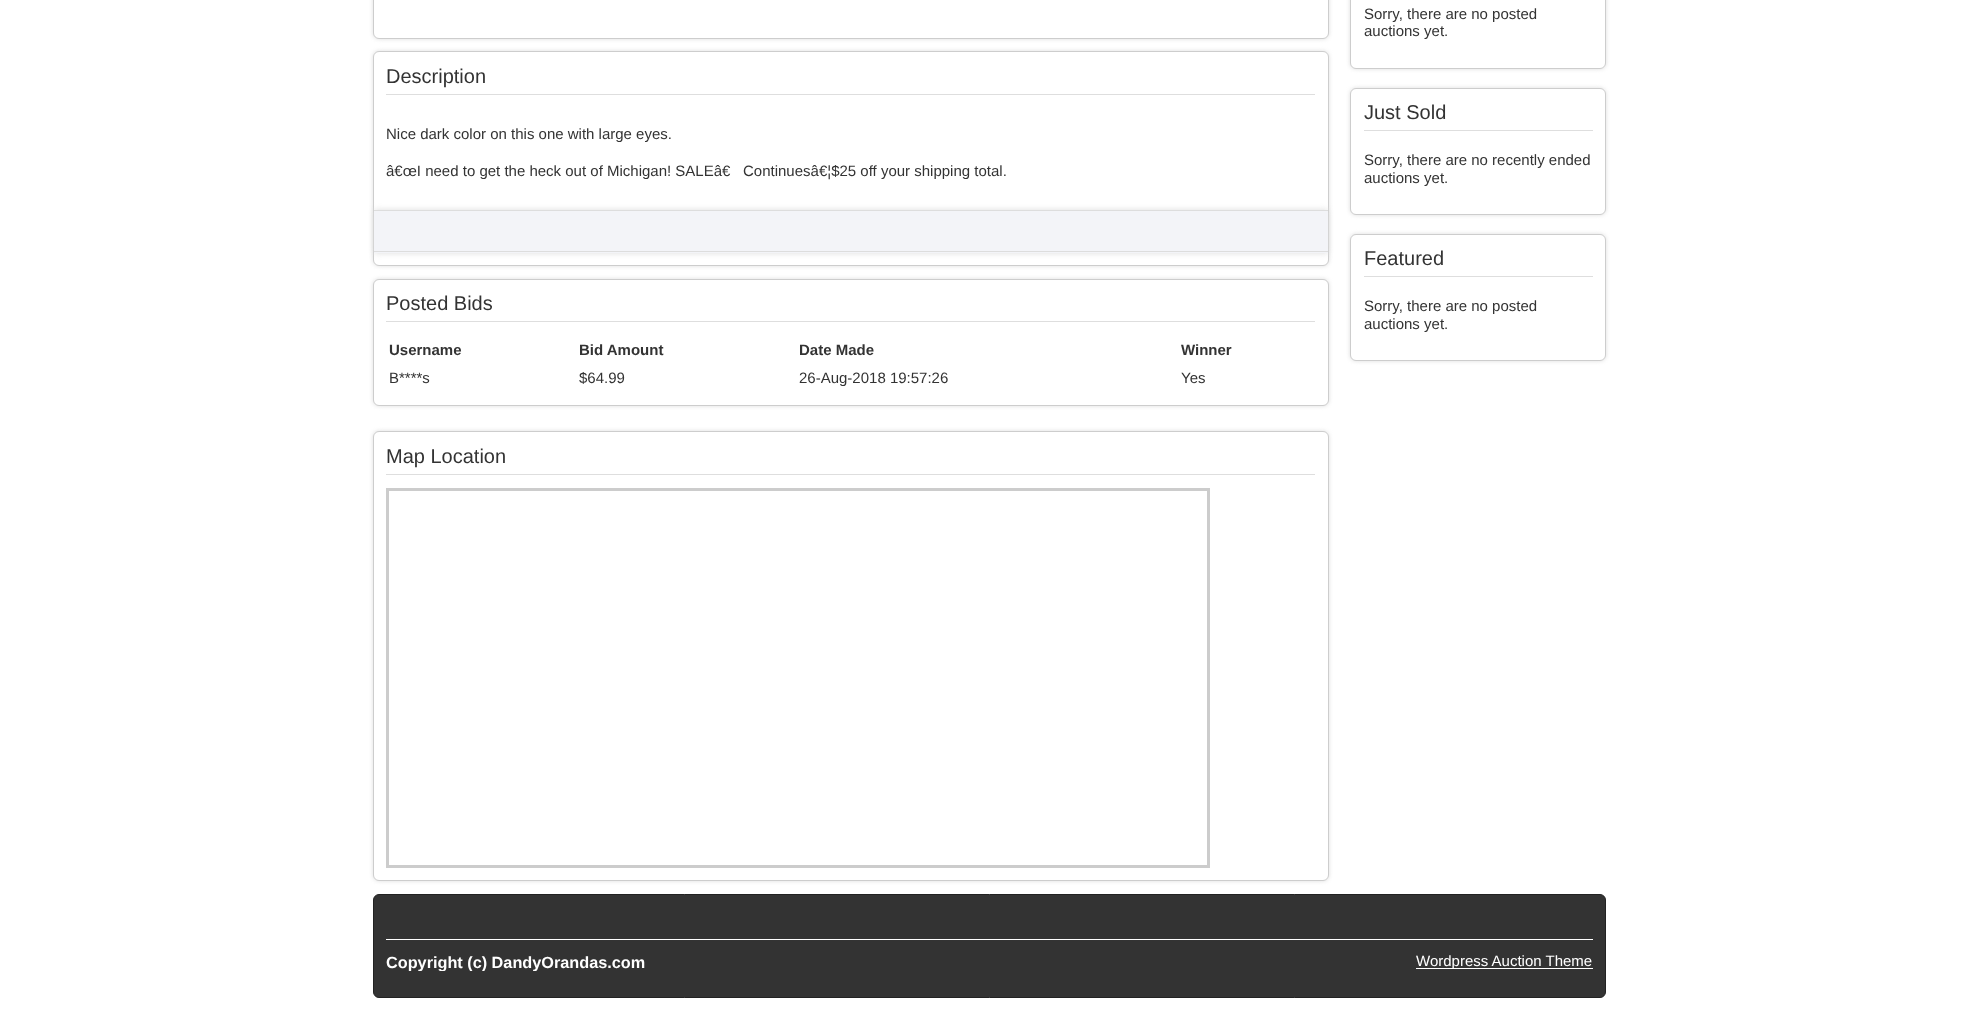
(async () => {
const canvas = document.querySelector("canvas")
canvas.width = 1977
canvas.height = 1022
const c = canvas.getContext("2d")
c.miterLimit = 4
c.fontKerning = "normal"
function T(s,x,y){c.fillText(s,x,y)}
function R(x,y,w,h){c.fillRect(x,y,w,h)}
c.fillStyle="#fff"
R(0,0,1977,1022)
c.fillStyle="#ddd"
c.filter="blur(2px)"
c.beginPath()
c.roundRect(373,-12,956,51,6)
c.fill()
c.filter="none"
c.fillStyle="#fff"
c.beginPath()
c.roundRect(373.5,-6.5,955,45,5.5)
c.fill()
c.strokeStyle="#cdcdcd"
c.stroke()
c.fillStyle="#ddd"
c.filter="blur(2px)"
c.beginPath()
c.roundRect(373,51,956,215,6)
c.fill()
c.filter="none"
c.fillStyle="#fff"
c.beginPath()
c.roundRect(373.5,51.5,955,214,5.5)
c.fill()
c.stroke()
c.fillStyle="#dedede"
R(386,94,929,1)
c.font="20px Liberation Sans"
c.fillStyle="#333"
T("Description",386,83)
c.font="15px Liberation Sans"
T("Nice dark color on this one with large eyes.",386,139)
T("â€œI need to get the heck out of Michigan! SALEâ€",386,176)
T("Continuesâ€¦$25 off your shipping total.",743,176)
c.fillStyle="#ddd"
c.filter="blur(3px)"
c.beginPath()
c.rect(374,210,954,43)
c.fill()
c.filter="none"
c.fillStyle="#f3f4f8"
R(374,211,954,42)
c.fillStyle="#ddd"
R(374,210,954,1)
R(374,251,954,1)
c.filter="blur(2px)"
c.beginPath()
c.roundRect(373,279,956,127,6)
c.fill()
c.filter="none"
c.fillStyle="#fff"
c.beginPath()
c.roundRect(373.5,279.5,955,126,5.5)
c.fill()
c.stroke()
c.fillStyle="#dedede"
R(386,321,929,1)
c.font="20px Liberation Sans"
c.fillStyle="#333"
T("Posted Bids",386,310)
c.font="bold 15px Liberation Sans"
T("Username",389,355)
T("Bid Amount",579,355)
T("Date Made",799,355)
T("Winner",1181,355)
c.font="15px Liberation Sans"
T("B****s",389,383)
T("$64.99",579,383)
T("26-Aug-2018 19:57:26",799,383)
T("Yes",1181,383)
c.fillStyle="#ddd"
c.filter="blur(2px)"
c.beginPath()
c.roundRect(373,431,956,450,6)
c.fill()
c.filter="none"
c.fillStyle="#fff"
c.beginPath()
c.roundRect(373.5,431.5,955,449,5.5)
c.fill()
c.stroke()
c.fillStyle="#dedede"
R(386,474,929,1)
c.font="20px Liberation Sans"
c.fillStyle="#333"
T("Map Location",386,463)
c.strokeStyle="#ccc"
c.lineWidth=3
c.strokeRect(387.5,489.5,821,377)
c.fillStyle="#ddd"
c.filter="blur(2px)"
c.beginPath()
c.roundRect(1350,-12,256,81,6)
c.fill()
c.filter="none"
c.fillStyle="#fff"
c.beginPath()
c.roundRect(1350.5,-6.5,255,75,5.5)
c.fill()
c.strokeStyle="#cdcdcd"
c.lineWidth=1
c.stroke()
c.font="15px Liberation Sans"
c.fillStyle="#333"
T("Sorry, there are no posted",1364,19)
T("auctions yet.",1364,36)
c.fillStyle="#ddd"
c.filter="blur(2px)"
c.beginPath()
c.roundRect(1350,88,256,127,6)
c.fill()
c.filter="none"
c.fillStyle="#fff"
c.beginPath()
c.roundRect(1350.5,88.5,255,126,5.5)
c.fill()
c.stroke()
c.fillStyle="#dedede"
R(1364,130,229,1)
c.font="20px Liberation Sans"
c.fillStyle="#333"
T("Just Sold",1364,119)
c.font="15px Liberation Sans"
T("Sorry, there are no recently ended",1364,165)
T("auctions yet.",1364,183)
c.fillStyle="#ddd"
c.filter="blur(2px)"
c.beginPath()
c.roundRect(1350,234,256,127,6)
c.fill()
c.filter="none"
c.fillStyle="#fff"
c.beginPath()
c.roundRect(1350.5,234.5,255,126,5.5)
c.fill()
c.stroke()
c.fillStyle="#dedede"
R(1364,276,229,1)
c.font="20px Liberation Sans"
c.fillStyle="#333"
T("Featured",1364,265)
c.font="15px Liberation Sans"
T("Sorry, there are no posted",1364,311)
T("auctions yet.",1364,329)
c.beginPath()
c.roundRect(373.5,894.5,1232,103,5.5)
c.fill()
c.strokeStyle="#222"
c.stroke()
c.fillStyle="#fff"
R(386,939,1207,1)
c.save()
c.beginPath()
c.rect(386,940,1207,31)
c.clip()
c.font="bold 16.25px Liberation Sans"
T("Copyright (c) DandyOrandas.com",386,968)
c.restore()
R(1416,968,177,1)
T("Wordpress Auction Theme",1416,966)
})()
